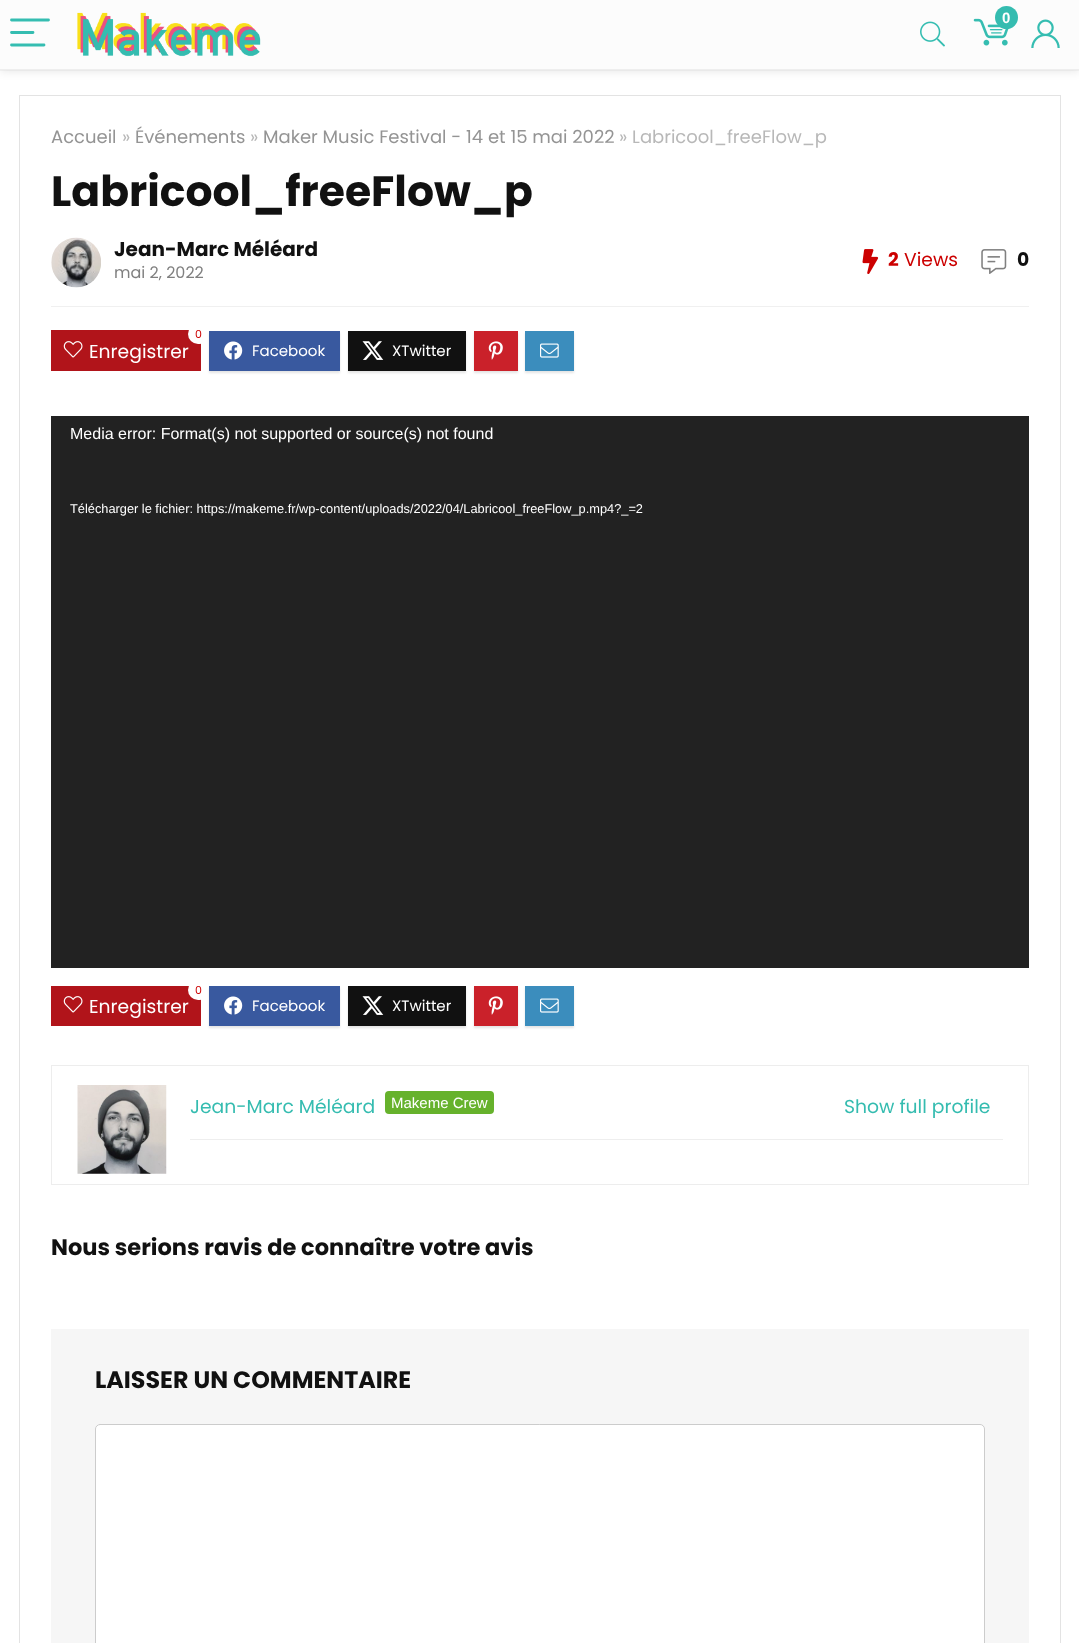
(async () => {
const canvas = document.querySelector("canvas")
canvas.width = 1079
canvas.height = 1643
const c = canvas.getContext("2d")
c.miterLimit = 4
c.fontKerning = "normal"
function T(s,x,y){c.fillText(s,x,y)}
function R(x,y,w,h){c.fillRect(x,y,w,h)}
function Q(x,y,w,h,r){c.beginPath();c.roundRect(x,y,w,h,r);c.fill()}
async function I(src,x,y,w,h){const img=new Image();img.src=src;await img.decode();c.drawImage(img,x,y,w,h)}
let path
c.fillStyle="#fff"
R(0,0,1079,1643)
c.strokeStyle="#f7f7f7"
c.strokeRect(-.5,-.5,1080,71)
c.fillStyle="#0000001a"
c.filter="blur(5px)"
c.beginPath()
c.rect(0,1,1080,70)
c.fill()
c.filter="none"
c.fillStyle="#fcfcfc"
R(0,0,1079,69)
c.fillStyle="#eee"
R(0,69,1079,1)
path = new Path2D("M11.5 20h37m-37 12.5h21.5m-21.5 12.5h32.5")
c.strokeStyle="#35bdb1"
c.lineWidth=2.8
c.lineCap="round"
c.stroke(path)
await I("1.png",77,12,184,45)
await I("2.png",920,21,25,26)
await I("3.png",973,18,36,28)
c.fillStyle="#35bcb0"
c.beginPath()
c.arc(1006.5,17.5,11.5,0,7)
c.fill()
c.font="bold 15px Liberation Sans"
c.fillStyle="#fff"
T("0",1002,23)
await I("4.png",1031,19,29,29)
c.strokeStyle="#e3e3e3"
c.lineWidth=1
c.strokeRect(19.5,95.5,1041,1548)
c.font="18px Poppins"
c.fillStyle="#949494"
T("Accueil",51,143)
c.fillStyle="#b8b8b8"
T("»",122,143)
c.fillStyle="#949494"
T("Événements",135,143)
c.fillStyle="#b8b8b8"
T("»",250,143)
c.fillStyle="#949494"
T("Maker Music Festival - 14 et 15 mai 2022",263,143)
c.fillStyle="#b8b8b8"
T("» Labricool_freeFlow_p",619,143)
c.font="bold 42.5px Poppins"
c.fillStyle="#111"
T("Labricool_freeFlow_p",51,206)
c.fillStyle="#f0f0f0"
R(51,306,978,1)
await I("5.png",51,237,50,51)
c.font="bold 20px Poppins"
c.fillStyle="#111"
T("Jean-Marc Méléard",114,256)
c.font="16px Poppins"
c.fillStyle="#808080"
T("mai 2, 2022",114,278)
await I("6.png",862,249,17,25)
c.font="bold 18.75px Poppins"
c.fillStyle="#c00"
T("2",888,266)
c.font="18.75px Poppins"
T("Views",904,266)
await I("7.png",981,249,26,25)
c.font="bold 18.75px Poppins"
c.fillStyle="#111"
T("0",1017,266)
c.fillStyle="#b1141a"
R(51,330,150,41)
c.save()
c.beginPath()
c.rect(51,326,978,53)
c.clip()
c.fillStyle="#fff"
Q(188,324,22,20,10)
c.restore()
c.font="11px Poppins"
c.fillStyle="#c00"
T("0",195,338)
await I("8.png",63,341,20,17)
c.font="18.75px Poppins"
c.fillStyle="#fff"
T("Enregistrer",89,358)
c.fillStyle="#e4e4e4"
c.filter="blur(1px)"
c.beginPath()
c.rect(209,333,131,40)
c.fill()
c.filter="none"
c.fillStyle="#39599f"
R(209,331,131,40)
await I("9.png",224,341,19,19)
c.font="15px Poppins"
c.fillStyle="#fff"
T("Facebook",252,356)
c.fillStyle="#e4e4e4"
c.filter="blur(1px)"
c.beginPath()
c.rect(348,333,118,40)
c.fill()
c.filter="none"
c.fillStyle="#111"
R(348,331,118,40)
await I("10.png",362,341,22,19)
c.fillStyle="#fff"
T("XTwitter",392,356)
c.fillStyle="#e4e4e4"
c.filter="blur(1px)"
c.beginPath()
c.rect(474,333,44,40)
c.fill()
c.filter="none"
c.fillStyle="#ca212a"
R(474,331,44,40)
await I("11.png",488,341,15,19)
c.fillStyle="#e4e4e4"
c.filter="blur(1px)"
c.beginPath()
c.rect(525,333,49,40)
c.fill()
c.filter="none"
c.fillStyle="#3b8dbd"
R(525,331,49,40)
await I("12.png",540,343,19,15)
c.fillStyle="#222"
R(51,416,978,552)
c.font="16px Liberation Sans"
c.fillStyle="#fff"
T("Media error: Format(s) not supported or source(s) not found",70,439)
c.font="12.8px Liberation Sans"
T("Télécharger le fichier: https://makeme.fr/wp-content/uploads/2022/04/Labricool_freeFlow_p.mp4?_=2",70,513)
c.fillStyle="#b1141a"
R(51,986,150,40)
c.fillStyle="#fff"
Q(188,980,22,20,10)
c.font="11px Poppins"
c.fillStyle="#c00"
T("0",195,994)
await I("8.png",63,996,20,17)
c.font="18.75px Poppins"
c.fillStyle="#fff"
T("Enregistrer",89,1013)
c.fillStyle="#e4e4e4"
c.filter="blur(1px)"
c.beginPath()
c.rect(209,988,131,40)
c.fill()
c.filter="none"
c.fillStyle="#39599f"
R(209,986,131,40)
await I("9.png",224,996,19,19)
c.font="15px Poppins"
c.fillStyle="#fff"
T("Facebook",252,1011)
c.fillStyle="#e4e4e4"
c.filter="blur(1px)"
c.beginPath()
c.rect(348,988,118,40)
c.fill()
c.filter="none"
c.fillStyle="#111"
R(348,986,118,40)
await I("10.png",362,996,22,19)
c.fillStyle="#fff"
T("XTwitter",392,1011)
c.fillStyle="#e4e4e4"
c.filter="blur(1px)"
c.beginPath()
c.rect(474,988,44,40)
c.fill()
c.filter="none"
c.fillStyle="#ca212a"
R(474,986,44,40)
await I("11.png",488,996,15,19)
c.fillStyle="#e4e4e4"
c.filter="blur(1px)"
c.beginPath()
c.rect(525,988,49,40)
c.fill()
c.filter="none"
c.fillStyle="#3b8dbd"
R(525,986,49,40)
await I("12.png",540,998,19,15)
c.strokeStyle="#ededed"
c.strokeRect(51.5,1065.5,977,119)
await I("13.png",77,1085,90,89)
c.font="18.75px Poppins"
c.fillStyle="#35bcb0"
T("Jean-Marc Méléard",190,1113)
c.fillStyle="#66b22c"
Q(385,1091,109,23,4)
c.font="15px Liberation Sans"
c.fillStyle="#fff"
T("Makeme Crew",391,1108)
c.font="18.75px Poppins"
c.fillStyle="#35bcb0"
T("Show full profile",844,1113)
c.fillStyle="#eee"
R(190,1139,813,1)
c.font="bold 22.5px Poppins"
c.fillStyle="#111"
T("Nous serions ravis de connaître votre avis",51,1255)
c.fillStyle="#f6f6f6"
R(51,1329,978,314)
c.font="bold 23.75px Poppins"
c.fillStyle="#111"
T("LAISSER UN COMMENTAIRE",95,1388)
c.fillStyle="#fff"
c.beginPath()
c.roundRect(95.5,1424.5,889,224,4.5)
c.fill()
c.strokeStyle="#ccc"
c.stroke()
})()
